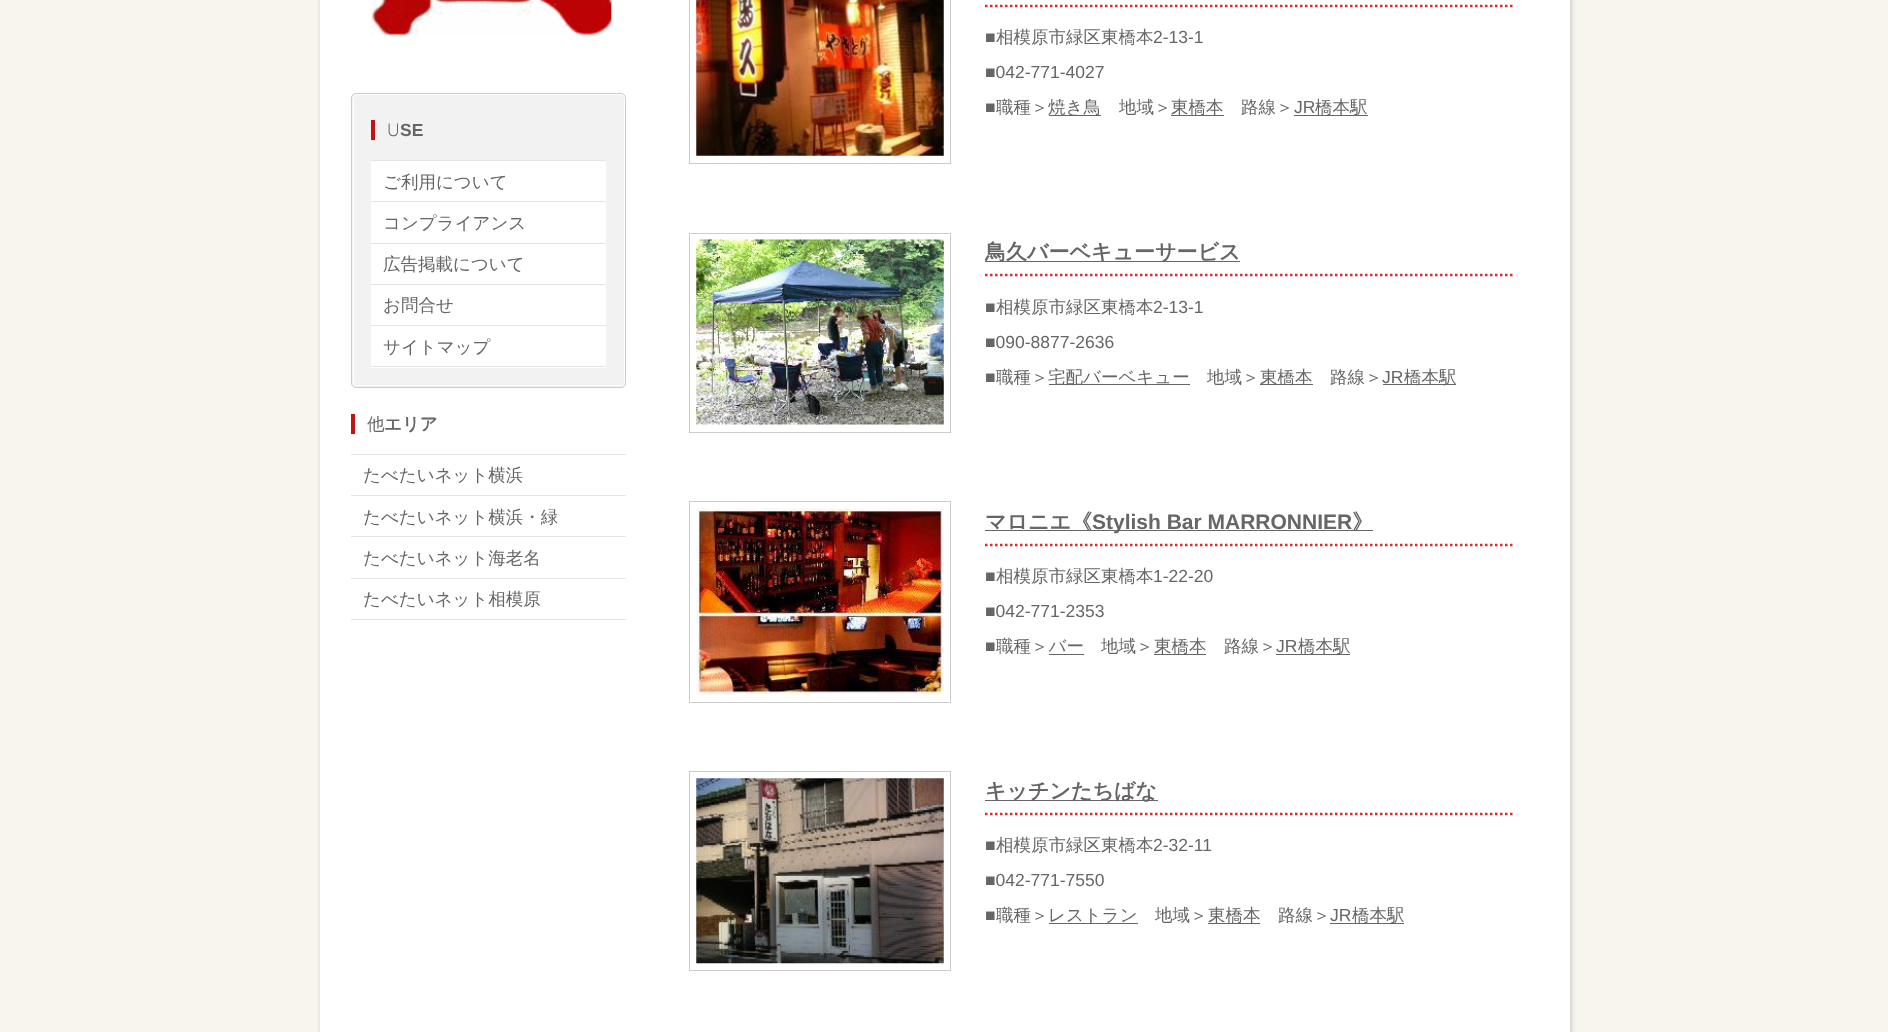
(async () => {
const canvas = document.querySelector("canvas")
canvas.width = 1888
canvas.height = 1032
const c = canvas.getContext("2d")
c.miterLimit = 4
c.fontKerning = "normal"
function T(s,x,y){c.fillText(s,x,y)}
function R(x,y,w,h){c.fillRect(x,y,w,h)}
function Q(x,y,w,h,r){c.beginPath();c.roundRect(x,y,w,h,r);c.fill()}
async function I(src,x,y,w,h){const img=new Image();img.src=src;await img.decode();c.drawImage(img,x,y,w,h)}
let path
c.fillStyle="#f8f5ee"
R(0,0,1888,1032)
c.fillStyle="#00000033"
c.filter="blur(2.5px)"
c.beginPath()
c.roundRect(321,-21,1250,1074,13)
c.fill()
c.filter="none"
c.fillStyle="#fff"
R(320,0,1250,1032)
await I("1.png",370,0,242,36)
c.fillStyle="#f2f2f2"
Q(351,93,275,295,5)
c.beginPath()
c.roundRect(353.5,94.5,271,291,3.5)
c.strokeStyle="#fff"
c.stroke()
c.beginPath()
c.roundRect(351.5,93.5,274,294,4.5)
c.strokeStyle="#ccc"
c.stroke()
c.font="300 17.5px Noto Sans"
c.fillStyle="#666"
T("U",387,136)
c.fillStyle="#c71212"
R(371,120,4,20)
c.font="bold 17.5px Liberation Sans"
c.fillStyle="#666"
T("SE",400,136)
c.fillStyle="#e4e4e4"
R(371,160,235,1)
c.fillStyle="#fff"
R(371,161,235,82)
c.fillStyle="#e4e4e4"
R(371,201,235,1)
c.font="500 17.5px WenQuanYi Zen Hei"
c.fillStyle="#666"
T("ご利用について",383,188)
c.fillStyle="#e4e4e4"
R(371,243,235,1)
c.fillStyle="#666"
T("コンプライアンス",383,229)
c.fillStyle="#fff"
R(371,244,235,40)
c.fillStyle="#e4e4e4"
R(371,284,235,1)
c.fillStyle="#666"
T("広告掲載について",383,270)
c.fillStyle="#fff"
R(371,285,235,40)
c.fillStyle="#e4e4e4"
R(371,325,235,1)
c.fillStyle="#666"
T("お問合せ",383,311)
c.fillStyle="#fff"
R(371,326,235,42)
c.fillStyle="#e4e4e4"
R(371,366,235,1)
c.fillStyle="#666"
T("サイトマップ",383,353)
c.font="100 17.5px Noto Sans"
T("他",367,430)
c.fillStyle="#c71212"
R(351,414,4,20)
c.font="bold 17.5px WenQuanYi Zen Hei"
c.fillStyle="#666"
T("エリア",384,430)
c.fillStyle="#e4e4e4"
R(351,454,275,1)
R(351,495,275,1)
c.font="500 17.5px WenQuanYi Zen Hei"
c.fillStyle="#666"
T("たべたいネット横浜",363,481)
c.fillStyle="#e4e4e4"
R(351,536,275,1)
c.fillStyle="#666"
T("たべたいネット横浜・緑",363,523)
c.fillStyle="#e4e4e4"
R(351,578,275,1)
c.fillStyle="#666"
T("たべたいネット海老名",363,564)
c.fillStyle="#e4e4e4"
R(351,619,275,1)
c.fillStyle="#666"
T("たべたいネット相模原",363,605)
c.strokeRect(689.5,-.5,261,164)
await I("2.png",696,0,248,156)
path = new Path2D("M985 6h529")
c.strokeStyle="#dd2a2a"
c.lineWidth=2.5
c.setLineDash([2.5,2.5])
c.stroke(path)
c.font="17.5px Liberation Sans"
T("■",985,43)
c.font="500 17.5px WenQuanYi Zen Hei"
T("相模原市緑区東橋本",996,43)
c.font="17.5px Liberation Sans"
T("2-13-1",1153,43)
T("■042-771-4027",985,78)
T("■",985,113)
c.font="500 17.5px WenQuanYi Zen Hei"
T("職種＞",996,113)
R(1049,115,52,1)
T("焼き鳥",1048,113)
T("地域＞",1119,113)
R(1171,115,53,1)
T("東橋本",1171,113)
T("路線＞",1241,113)
c.font="17.5px Liberation Sans"
T("JR",1294,113)
R(1294,115,74,1)
c.font="500 17.5px WenQuanYi Zen Hei"
T("橋本駅",1315,113)
c.strokeStyle="#ccc"
c.lineWidth=1
c.setLineDash([])
c.strokeRect(689.5,233.5,261,199)
await I("3.png",696,239,248,186)
path = new Path2D("M985 275h529")
c.strokeStyle="#dd2a2a"
c.lineWidth=2.5
c.setLineDash([2.5,2.5])
c.stroke(path)
R(985,261,255,1)
c.font="bold 21px WenQuanYi Zen Hei"
T("鳥久バーベキューサービス",985,259)
c.font="17.5px Liberation Sans"
T("■",985,313)
c.font="500 17.5px WenQuanYi Zen Hei"
T("相模原市緑区東橋本",996,313)
c.font="17.5px Liberation Sans"
T("2-13-1",1153,313)
T("■090-8877-2636",985,348)
T("■",985,383)
c.font="500 17.5px WenQuanYi Zen Hei"
T("職種＞",996,383)
R(1049,384,141,1)
T("宅配バーベキュー",1048,383)
T("地域＞",1207,383)
R(1260,384,53,1)
T("東橋本",1260,383)
T("路線＞",1330,383)
c.font="17.5px Liberation Sans"
T("JR",1382,383)
R(1383,384,73,1)
c.font="500 17.5px WenQuanYi Zen Hei"
T("橋本駅",1404,383)
c.strokeStyle="#ccc"
c.lineWidth=1
c.setLineDash([])
c.strokeRect(689.5,501.5,261,201)
await I("4.png",696,508,248,187)
path = new Path2D("M985 545h529")
c.strokeStyle="#dd2a2a"
c.lineWidth=2.5
c.setLineDash([2.5,2.5])
c.stroke(path)
R(985,530,388,1)
c.font="bold 21px WenQuanYi Zen Hei"
T("マロニエ《",985,529)
c.font="bold 21px Liberation Sans"
T("Stylish Bar MARRONNIER",1092,529)
c.font="bold 21px WenQuanYi Zen Hei"
T("》",1352,529)
c.font="17.5px Liberation Sans"
T("■",985,582)
c.font="500 17.5px WenQuanYi Zen Hei"
T("相模原市緑区東橋本",996,582)
c.font="17.5px Liberation Sans"
T("1-22-20",1153,582)
T("■042-771-2353",985,617)
T("■",985,652)
c.font="500 17.5px WenQuanYi Zen Hei"
T("職種＞バー",996,652)
T("地域＞",1101,652)
R(1154,654,52,1)
T("東橋本",1154,652)
T("路線＞",1224,652)
c.font="17.5px Liberation Sans"
T("JR",1276,652)
R(1276,654,74,1)
c.font="500 17.5px WenQuanYi Zen Hei"
T("橋本駅",1298,652)
R(1049,654,35,1)
c.strokeStyle="#ccc"
c.lineWidth=1
c.setLineDash([])
c.strokeRect(689.5,771.5,261,199)
await I("5.png",696,778,248,186)
path = new Path2D("M985 814h529")
c.strokeStyle="#dd2a2a"
c.lineWidth=2.5
c.setLineDash([2.5,2.5])
c.stroke(path)
R(985,800,173,1)
c.font="bold 21px WenQuanYi Zen Hei"
T("キッチンたちばな",985,798)
c.font="17.5px Liberation Sans"
T("■",985,851)
c.font="500 17.5px WenQuanYi Zen Hei"
T("相模原市緑区東橋本",996,851)
c.font="17.5px Liberation Sans"
T("2-32-11",1153,851)
T("■042-771-7550",985,886)
T("■",985,921)
c.font="500 17.5px WenQuanYi Zen Hei"
T("職種＞",996,921)
R(1049,923,89,1)
T("レストラン",1048,921)
T("地域＞",1155,921)
R(1208,923,52,1)
T("東橋本",1208,921)
T("路線＞",1278,921)
c.font="17.5px Liberation Sans"
T("JR",1330,921)
R(1330,923,74,1)
c.font="500 17.5px WenQuanYi Zen Hei"
T("橋本駅",1352,921)
})()
